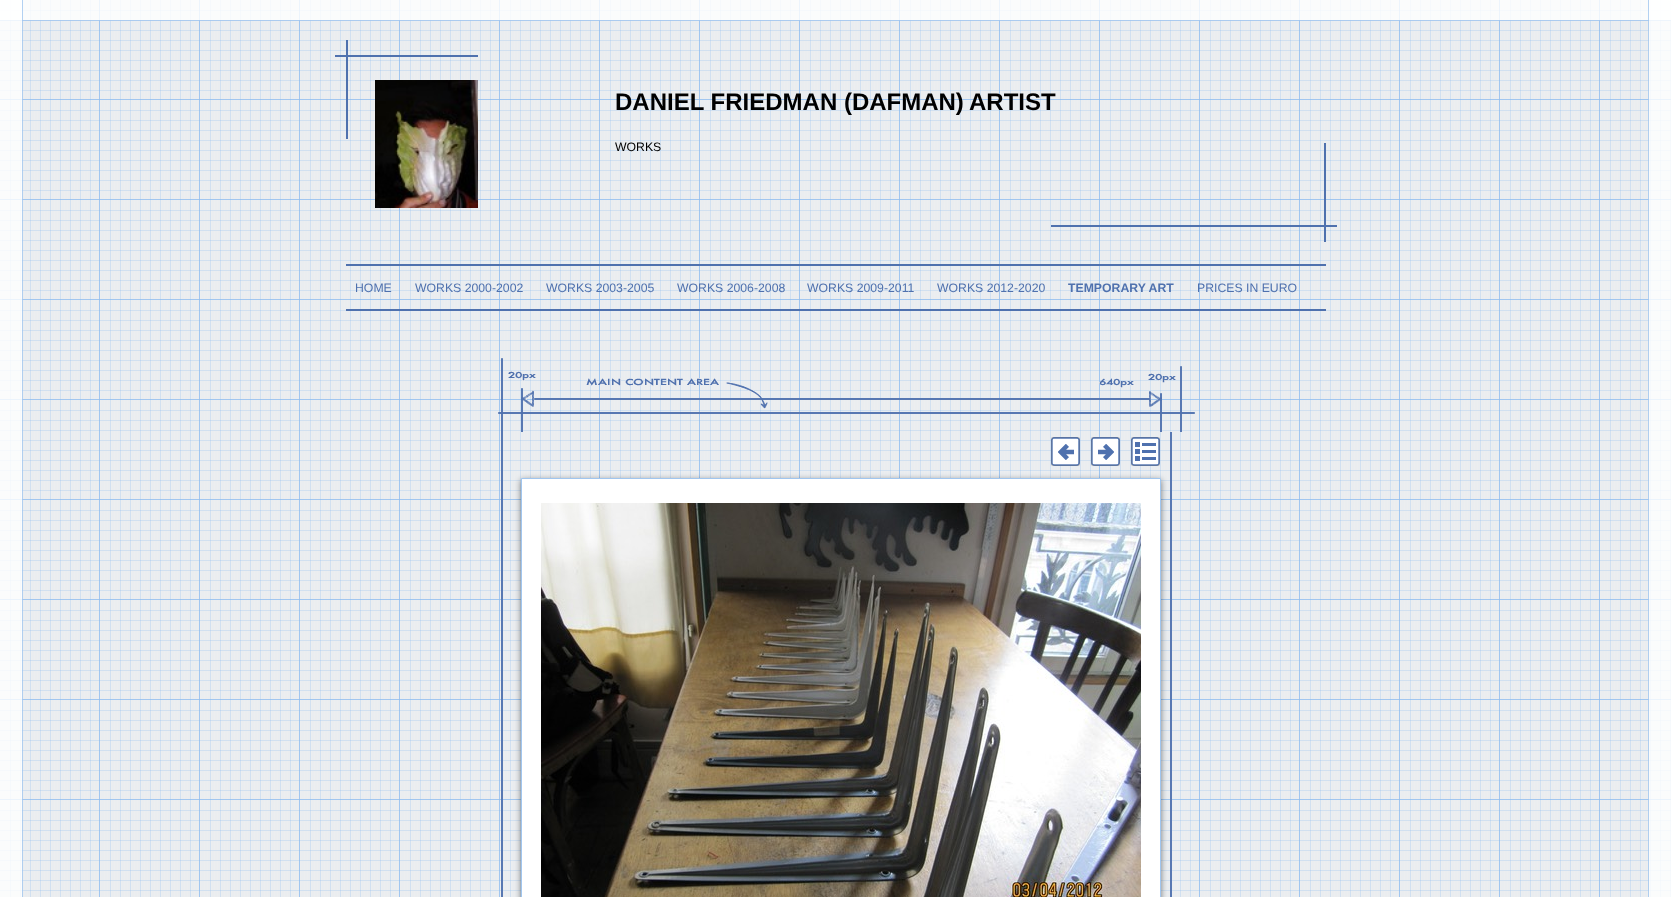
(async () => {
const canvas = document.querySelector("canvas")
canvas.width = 1671
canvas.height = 897
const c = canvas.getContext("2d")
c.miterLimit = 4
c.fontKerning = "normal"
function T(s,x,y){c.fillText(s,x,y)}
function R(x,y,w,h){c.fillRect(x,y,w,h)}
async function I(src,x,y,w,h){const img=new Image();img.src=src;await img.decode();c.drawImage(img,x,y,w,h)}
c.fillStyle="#fff"
R(0,0,1671,897)
await I("1.png",0,0,1671,897)
c.fillStyle="#ffffffcc"
R(0,0,1671,20)
c.fillStyle="#a1c6efcc"
R(0,20,1671,1)
c.fillStyle="#ffffffcc"
R(0,0,22,897)
c.fillStyle="#a1c6efcc"
R(22,0,1,897)
c.fillStyle="#ffffffcc"
R(1649,0,22,897)
c.fillStyle="#a1c6efcc"
R(1648,0,1,897)
await I("2.png",498,358,697,74)
await I("3.png",1051,143,286,99)
await I("4.png",335,40,143,99)
await I("5.png",375,80,103,128)
c.font="bold 24px Liberation Sans"
c.fillStyle="#000"
T("DANIEL FRIEDMAN (DAFMAN)",615,110)
T("ARTIST",969,110)
c.font="12.25px Liberation Sans"
T("WORKS",615,151)
c.fillStyle="#4f71ae"
R(346,309,980,2)
R(346,264,980,2)
T("HOME",355,292)
T("WORKS 2000-2002",415,292)
T("WORKS 2003-2005",546,292)
T("WORKS 2006-2008",677,292)
T("WORKS 2009-2011",807,292)
T("WORKS 2012-2020",937,292)
c.font="bold 12.25px Liberation Sans"
T("TEMPORARY ART",1068,292)
c.font="12.25px Liberation Sans"
T("PRICES IN EURO",1197,292)
c.fillStyle="#5878b2"
R(501,432,2,465)
R(1170,432,2,465)
await I("6.png",1051,437,29,29)
await I("7.png",1091,437,29,29)
await I("8.png",1131,437,29,29)
c.fillStyle="#00000080"
c.filter="blur(3px)"
c.beginPath()
c.rect(521,480,640,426)
c.fill()
c.filter="none"
c.fillStyle="#fff"
c.beginPath()
c.rect(521.5,478.5,639,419)
c.fill()
c.strokeStyle="#a1c6ef"
c.stroke()
await I("9.png",541,503,600,394)
})()
